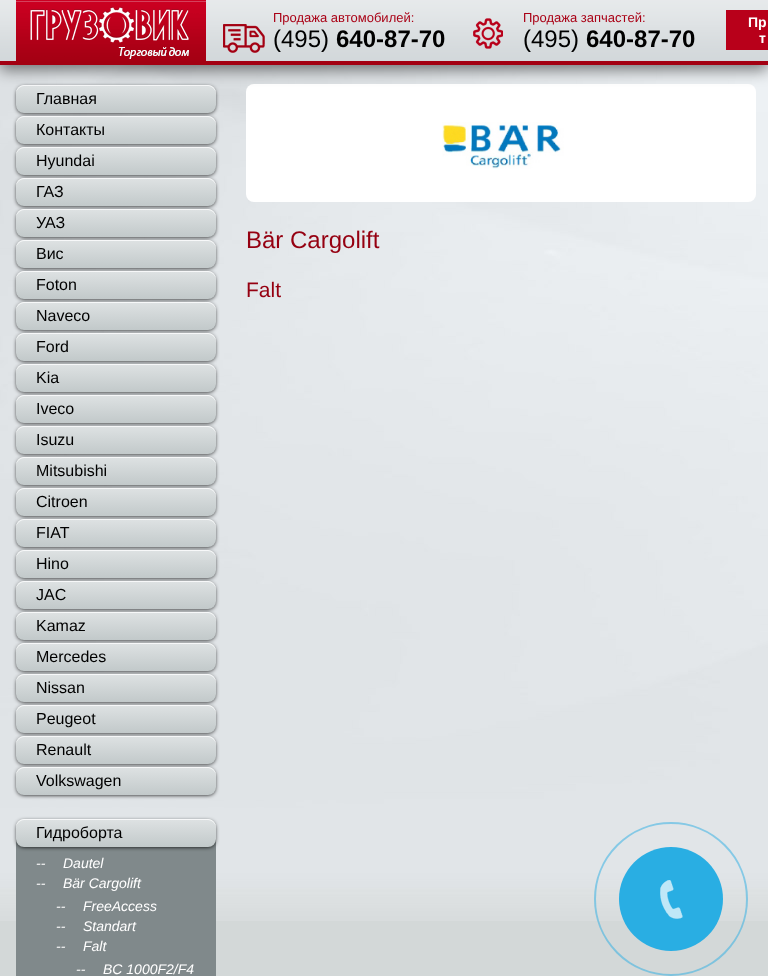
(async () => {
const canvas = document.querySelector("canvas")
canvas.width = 768
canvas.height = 976
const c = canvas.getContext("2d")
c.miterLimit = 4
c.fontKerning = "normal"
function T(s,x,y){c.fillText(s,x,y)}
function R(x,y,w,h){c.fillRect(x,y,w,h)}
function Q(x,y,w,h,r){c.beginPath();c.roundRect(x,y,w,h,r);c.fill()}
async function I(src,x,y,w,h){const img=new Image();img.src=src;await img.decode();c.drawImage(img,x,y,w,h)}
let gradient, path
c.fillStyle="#d3d8d8"
R(0,0,768,976)
await I("1.png",0,65,768,856)
c.fillStyle="#000"
c.filter="blur(2px)"
c.beginPath()
c.roundRect(17,87,198,26,7)
c.fill()
c.filter="none"
gradient = c.createLinearGradient(116,85,116,113)
gradient.addColorStop(0,"#dee2e3")
gradient.addColorStop(1,"#c2c9ca")
c.fillStyle = gradient
Q(16,85,200,28,8)
c.fillStyle="#f7f8f9"
path = new Path2D("M24 86h184c4 0 8 4 8 8v-1c0-4-4-8-8-8h-184c-4 0-8 4-8 8v1c0-4 4-8 8-8z")
c.fill(path)
c.fillStyle="#fff"
Q(246,84,510,118,8)
c.fillStyle="#00000080"
c.filter="blur(7.5px)"
c.beginPath()
c.rect(0,5,768,65)
c.fill()
c.filter="none"
await I("2.png",0,0,768,65)
await I("3.png",16,0,190,61)
await I("4.png",223,24,42,29)
c.font="13px Liberation Sans"
c.fillStyle="#a90015"
T("Продажа автомобилей:",273,22)
c.font="24px Liberation Sans"
c.fillStyle="#000"
T("(495)",273,47)
c.font="bold 24px Liberation Sans"
T("640-87-70",336,47)
await I("5.png",473,18,30,31)
c.font="13px Liberation Sans"
c.fillStyle="#a90015"
T("Продажа запчастей:",523,22)
c.font="24px Liberation Sans"
c.fillStyle="#000"
T("(495)",523,47)
c.font="bold 24px Liberation Sans"
T("640-87-70",586,47)
c.fillStyle="#b8001a"
R(726,10,42,40)
c.font="bold 14px Liberation Sans"
c.fillStyle="#fff"
T("Пр",748,27)
T("т",759,43)
c.font="16px Liberation Sans"
c.fillStyle="#000"
T("Главная",36,104)
c.filter="blur(2px)"
c.beginPath()
c.roundRect(17,118,198,26,7)
c.fill()
c.filter="none"
gradient = c.createLinearGradient(116,116,116,144)
gradient.addColorStop(0,"#dee2e3")
gradient.addColorStop(1,"#c2c9ca")
c.fillStyle = gradient
Q(16,116,200,28,8)
c.fillStyle="#f7f8f9"
path = new Path2D("M24 117h184c4 0 8 4 8 8v-1c0-4-4-8-8-8h-184c-4 0-8 4-8 8v1c0-4 4-8 8-8z")
c.fill(path)
c.fillStyle="#000"
T("Контакты",36,135)
c.filter="blur(2px)"
c.beginPath()
c.roundRect(17,149,198,26,7)
c.fill()
c.filter="none"
gradient = c.createLinearGradient(116,147,116,175)
gradient.addColorStop(0,"#dee2e3")
gradient.addColorStop(1,"#c2c9ca")
c.fillStyle = gradient
Q(16,147,200,28,8)
c.fillStyle="#f7f8f9"
path = new Path2D("M24 148h184c4 0 8 4 8 8v-1c0-4-4-8-8-8h-184c-4 0-8 4-8 8v1c0-4 4-8 8-8z")
c.fill(path)
c.fillStyle="#000"
T("Hyundai",36,166)
c.filter="blur(2px)"
c.beginPath()
c.roundRect(17,180,198,26,7)
c.fill()
c.filter="none"
gradient = c.createLinearGradient(116,178,116,206)
gradient.addColorStop(0,"#dee2e3")
gradient.addColorStop(1,"#c2c9ca")
c.fillStyle = gradient
Q(16,178,200,28,8)
c.fillStyle="#f7f8f9"
path = new Path2D("M24 179h184c4 0 8 4 8 8v-1c0-4-4-8-8-8h-184c-4 0-8 4-8 8v1c0-4 4-8 8-8z")
c.fill(path)
c.fillStyle="#000"
T("ГАЗ",36,197)
c.filter="blur(2px)"
c.beginPath()
c.roundRect(17,211,198,26,7)
c.fill()
c.filter="none"
gradient = c.createLinearGradient(116,209,116,237)
gradient.addColorStop(0,"#dee2e3")
gradient.addColorStop(1,"#c2c9ca")
c.fillStyle = gradient
Q(16,209,200,28,8)
c.fillStyle="#f7f8f9"
path = new Path2D("M24 210h184c4 0 8 4 8 8v-1c0-4-4-8-8-8h-184c-4 0-8 4-8 8v1c0-4 4-8 8-8z")
c.fill(path)
c.fillStyle="#000"
T("УАЗ",36,228)
c.filter="blur(2px)"
c.beginPath()
c.roundRect(17,242,198,26,7)
c.fill()
c.filter="none"
gradient = c.createLinearGradient(116,240,116,268)
gradient.addColorStop(0,"#dee2e3")
gradient.addColorStop(1,"#c2c9ca")
c.fillStyle = gradient
Q(16,240,200,28,8)
c.fillStyle="#f7f8f9"
path = new Path2D("M24 241h184c4 0 8 4 8 8v-1c0-4-4-8-8-8h-184c-4 0-8 4-8 8v1c0-4 4-8 8-8z")
c.fill(path)
c.fillStyle="#000"
T("Вис",36,259)
c.filter="blur(2px)"
c.beginPath()
c.roundRect(17,273,198,26,7)
c.fill()
c.filter="none"
gradient = c.createLinearGradient(116,271,116,299)
gradient.addColorStop(0,"#dee2e3")
gradient.addColorStop(1,"#c2c9ca")
c.fillStyle = gradient
Q(16,271,200,28,8)
c.fillStyle="#f7f8f9"
path = new Path2D("M24 272h184c4 0 8 4 8 8v-1c0-4-4-8-8-8h-184c-4 0-8 4-8 8v1c0-4 4-8 8-8z")
c.fill(path)
c.fillStyle="#000"
T("Foton",36,290)
c.filter="blur(2px)"
c.beginPath()
c.roundRect(17,304,198,26,7)
c.fill()
c.filter="none"
gradient = c.createLinearGradient(116,302,116,330)
gradient.addColorStop(0,"#dee2e3")
gradient.addColorStop(1,"#c2c9ca")
c.fillStyle = gradient
Q(16,302,200,28,8)
c.fillStyle="#f7f8f9"
path = new Path2D("M24 303h184c4 0 8 4 8 8v-1c0-4-4-8-8-8h-184c-4 0-8 4-8 8v1c0-4 4-8 8-8z")
c.fill(path)
c.fillStyle="#000"
T("Naveco",36,321)
c.filter="blur(2px)"
c.beginPath()
c.roundRect(17,335,198,26,7)
c.fill()
c.filter="none"
gradient = c.createLinearGradient(116,333,116,361)
gradient.addColorStop(0,"#dee2e3")
gradient.addColorStop(1,"#c2c9ca")
c.fillStyle = gradient
Q(16,333,200,28,8)
c.fillStyle="#f7f8f9"
path = new Path2D("M24 334h184c4 0 8 4 8 8v-1c0-4-4-8-8-8h-184c-4 0-8 4-8 8v1c0-4 4-8 8-8z")
c.fill(path)
c.fillStyle="#000"
T("Ford",36,352)
c.filter="blur(2px)"
c.beginPath()
c.roundRect(17,366,198,26,7)
c.fill()
c.filter="none"
gradient = c.createLinearGradient(116,364,116,392)
gradient.addColorStop(0,"#dee2e3")
gradient.addColorStop(1,"#c2c9ca")
c.fillStyle = gradient
Q(16,364,200,28,8)
c.fillStyle="#f7f8f9"
path = new Path2D("M24 365h184c4 0 8 4 8 8v-1c0-4-4-8-8-8h-184c-4 0-8 4-8 8v1c0-4 4-8 8-8z")
c.fill(path)
c.fillStyle="#000"
T("Kia",36,383)
c.filter="blur(2px)"
c.beginPath()
c.roundRect(17,397,198,26,7)
c.fill()
c.filter="none"
gradient = c.createLinearGradient(116,395,116,423)
gradient.addColorStop(0,"#dee2e3")
gradient.addColorStop(1,"#c2c9ca")
c.fillStyle = gradient
Q(16,395,200,28,8)
c.fillStyle="#f7f8f9"
path = new Path2D("M24 396h184c4 0 8 4 8 8v-1c0-4-4-8-8-8h-184c-4 0-8 4-8 8v1c0-4 4-8 8-8z")
c.fill(path)
c.fillStyle="#000"
T("Iveco",36,414)
c.filter="blur(2px)"
c.beginPath()
c.roundRect(17,428,198,26,7)
c.fill()
c.filter="none"
gradient = c.createLinearGradient(116,426,116,454)
gradient.addColorStop(0,"#dee2e3")
gradient.addColorStop(1,"#c2c9ca")
c.fillStyle = gradient
Q(16,426,200,28,8)
c.fillStyle="#f7f8f9"
path = new Path2D("M24 427h184c4 0 8 4 8 8v-1c0-4-4-8-8-8h-184c-4 0-8 4-8 8v1c0-4 4-8 8-8z")
c.fill(path)
c.fillStyle="#000"
T("Isuzu",36,445)
c.filter="blur(2px)"
c.beginPath()
c.roundRect(17,459,198,26,7)
c.fill()
c.filter="none"
gradient = c.createLinearGradient(116,457,116,485)
gradient.addColorStop(0,"#dee2e3")
gradient.addColorStop(1,"#c2c9ca")
c.fillStyle = gradient
Q(16,457,200,28,8)
c.fillStyle="#f7f8f9"
path = new Path2D("M24 458h184c4 0 8 4 8 8v-1c0-4-4-8-8-8h-184c-4 0-8 4-8 8v1c0-4 4-8 8-8z")
c.fill(path)
c.fillStyle="#000"
T("Mitsubishi",36,476)
c.filter="blur(2px)"
c.beginPath()
c.roundRect(17,490,198,26,7)
c.fill()
c.filter="none"
gradient = c.createLinearGradient(116,488,116,516)
gradient.addColorStop(0,"#dee2e3")
gradient.addColorStop(1,"#c2c9ca")
c.fillStyle = gradient
Q(16,488,200,28,8)
c.fillStyle="#f7f8f9"
path = new Path2D("M24 489h184c4 0 8 4 8 8v-1c0-4-4-8-8-8h-184c-4 0-8 4-8 8v1c0-4 4-8 8-8z")
c.fill(path)
c.fillStyle="#000"
T("Citroen",36,507)
c.filter="blur(2px)"
c.beginPath()
c.roundRect(17,521,198,26,7)
c.fill()
c.filter="none"
gradient = c.createLinearGradient(116,519,116,547)
gradient.addColorStop(0,"#dee2e3")
gradient.addColorStop(1,"#c2c9ca")
c.fillStyle = gradient
Q(16,519,200,28,8)
c.fillStyle="#f7f8f9"
path = new Path2D("M24 520h184c4 0 8 4 8 8v-1c0-4-4-8-8-8h-184c-4 0-8 4-8 8v1c0-4 4-8 8-8z")
c.fill(path)
c.fillStyle="#000"
T("FIAT",36,538)
c.filter="blur(2px)"
c.beginPath()
c.roundRect(17,552,198,26,7)
c.fill()
c.filter="none"
gradient = c.createLinearGradient(116,550,116,578)
gradient.addColorStop(0,"#dee2e3")
gradient.addColorStop(1,"#c2c9ca")
c.fillStyle = gradient
Q(16,550,200,28,8)
c.fillStyle="#f7f8f9"
path = new Path2D("M24 551h184c4 0 8 4 8 8v-1c0-4-4-8-8-8h-184c-4 0-8 4-8 8v1c0-4 4-8 8-8z")
c.fill(path)
c.fillStyle="#000"
T("Hino",36,569)
c.filter="blur(2px)"
c.beginPath()
c.roundRect(17,583,198,26,7)
c.fill()
c.filter="none"
gradient = c.createLinearGradient(116,581,116,609)
gradient.addColorStop(0,"#dee2e3")
gradient.addColorStop(1,"#c2c9ca")
c.fillStyle = gradient
Q(16,581,200,28,8)
c.fillStyle="#f7f8f9"
path = new Path2D("M24 582h184c4 0 8 4 8 8v-1c0-4-4-8-8-8h-184c-4 0-8 4-8 8v1c0-4 4-8 8-8z")
c.fill(path)
c.fillStyle="#000"
T("JAC",36,600)
c.filter="blur(2px)"
c.beginPath()
c.roundRect(17,614,198,26,7)
c.fill()
c.filter="none"
gradient = c.createLinearGradient(116,612,116,640)
gradient.addColorStop(0,"#dee2e3")
gradient.addColorStop(1,"#c2c9ca")
c.fillStyle = gradient
Q(16,612,200,28,8)
c.fillStyle="#f7f8f9"
path = new Path2D("M24 613h184c4 0 8 4 8 8v-1c0-4-4-8-8-8h-184c-4 0-8 4-8 8v1c0-4 4-8 8-8z")
c.fill(path)
c.fillStyle="#000"
T("Kamaz",36,631)
c.filter="blur(2px)"
c.beginPath()
c.roundRect(17,645,198,26,7)
c.fill()
c.filter="none"
gradient = c.createLinearGradient(116,643,116,671)
gradient.addColorStop(0,"#dee2e3")
gradient.addColorStop(1,"#c2c9ca")
c.fillStyle = gradient
Q(16,643,200,28,8)
c.fillStyle="#f7f8f9"
path = new Path2D("M24 644h184c4 0 8 4 8 8v-1c0-4-4-8-8-8h-184c-4 0-8 4-8 8v1c0-4 4-8 8-8z")
c.fill(path)
c.fillStyle="#000"
T("Mercedes",36,662)
c.filter="blur(2px)"
c.beginPath()
c.roundRect(17,676,198,26,7)
c.fill()
c.filter="none"
gradient = c.createLinearGradient(116,674,116,702)
gradient.addColorStop(0,"#dee2e3")
gradient.addColorStop(1,"#c2c9ca")
c.fillStyle = gradient
Q(16,674,200,28,8)
c.fillStyle="#f7f8f9"
path = new Path2D("M24 675h184c4 0 8 4 8 8v-1c0-4-4-8-8-8h-184c-4 0-8 4-8 8v1c0-4 4-8 8-8z")
c.fill(path)
c.fillStyle="#000"
T("Nissan",36,693)
c.filter="blur(2px)"
c.beginPath()
c.roundRect(17,707,198,26,7)
c.fill()
c.filter="none"
gradient = c.createLinearGradient(116,705,116,733)
gradient.addColorStop(0,"#dee2e3")
gradient.addColorStop(1,"#c2c9ca")
c.fillStyle = gradient
Q(16,705,200,28,8)
c.fillStyle="#f7f8f9"
path = new Path2D("M24 706h184c4 0 8 4 8 8v-1c0-4-4-8-8-8h-184c-4 0-8 4-8 8v1c0-4 4-8 8-8z")
c.fill(path)
c.fillStyle="#000"
T("Peugeot",36,724)
c.filter="blur(2px)"
c.beginPath()
c.roundRect(17,738,198,26,7)
c.fill()
c.filter="none"
gradient = c.createLinearGradient(116,736,116,764)
gradient.addColorStop(0,"#dee2e3")
gradient.addColorStop(1,"#c2c9ca")
c.fillStyle = gradient
Q(16,736,200,28,8)
c.fillStyle="#f7f8f9"
path = new Path2D("M24 737h184c4 0 8 4 8 8v-1c0-4-4-8-8-8h-184c-4 0-8 4-8 8v1c0-4 4-8 8-8z")
c.fill(path)
c.fillStyle="#000"
T("Renault",36,755)
c.filter="blur(2px)"
c.beginPath()
c.roundRect(17,769,198,26,7)
c.fill()
c.filter="none"
gradient = c.createLinearGradient(116,767,116,795)
gradient.addColorStop(0,"#dee2e3")
gradient.addColorStop(1,"#c2c9ca")
c.fillStyle = gradient
Q(16,767,200,28,8)
c.fillStyle="#f7f8f9"
path = new Path2D("M24 768h184c4 0 8 4 8 8v-1c0-4-4-8-8-8h-184c-4 0-8 4-8 8v1c0-4 4-8 8-8z")
c.fill(path)
c.fillStyle="#000"
T("Volkswagen",36,786)
c.fillStyle="#80898b"
Q(16,823,200,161,8)
c.fillStyle="#000"
c.filter="blur(2px)"
c.beginPath()
c.roundRect(17,821,198,26,7)
c.fill()
c.filter="none"
gradient = c.createLinearGradient(116,819,116,847)
gradient.addColorStop(0,"#dee2e3")
gradient.addColorStop(1,"#c2c9ca")
c.fillStyle = gradient
Q(16,819,200,28,8)
c.fillStyle="#f7f8f9"
path = new Path2D("M24 820h184c4 0 8 4 8 8v-1c0-4-4-8-8-8h-184c-4 0-8 4-8 8v1c0-4 4-8 8-8z")
c.fill(path)
c.fillStyle="#000"
T("Гидроборта",36,838)
c.font="italic 14px Liberation Sans"
c.fillStyle="#fff"
T("--",36,868)
T("Dautel",63,868)
T("--",36,888)
T("Bär Cargolift",63,888)
T("--",56,911)
T("FreeAccess",83,911)
T("--",56,931)
T("Standart",83,931)
T("--",56,951)
T("Falt",83,951)
T("--",76,974)
T("BC 1000F2/F4",103,974)
await I("6.png",442,122,122,47)
c.font="24px Liberation Sans"
c.fillStyle="#950011"
T("Bär Cargolift",246,248)
c.font="21px Liberation Sans"
T("Falt",246,297)
c.beginPath()
c.arc(671,899,76,0,7)
c.strokeStyle="#29aee380"
c.lineWidth=2
c.stroke()
c.fillStyle="#29aee3"
c.beginPath()
c.arc(671,899,52,0,7)
c.fill()
await I("7.png",660,880,23,39)
})()
